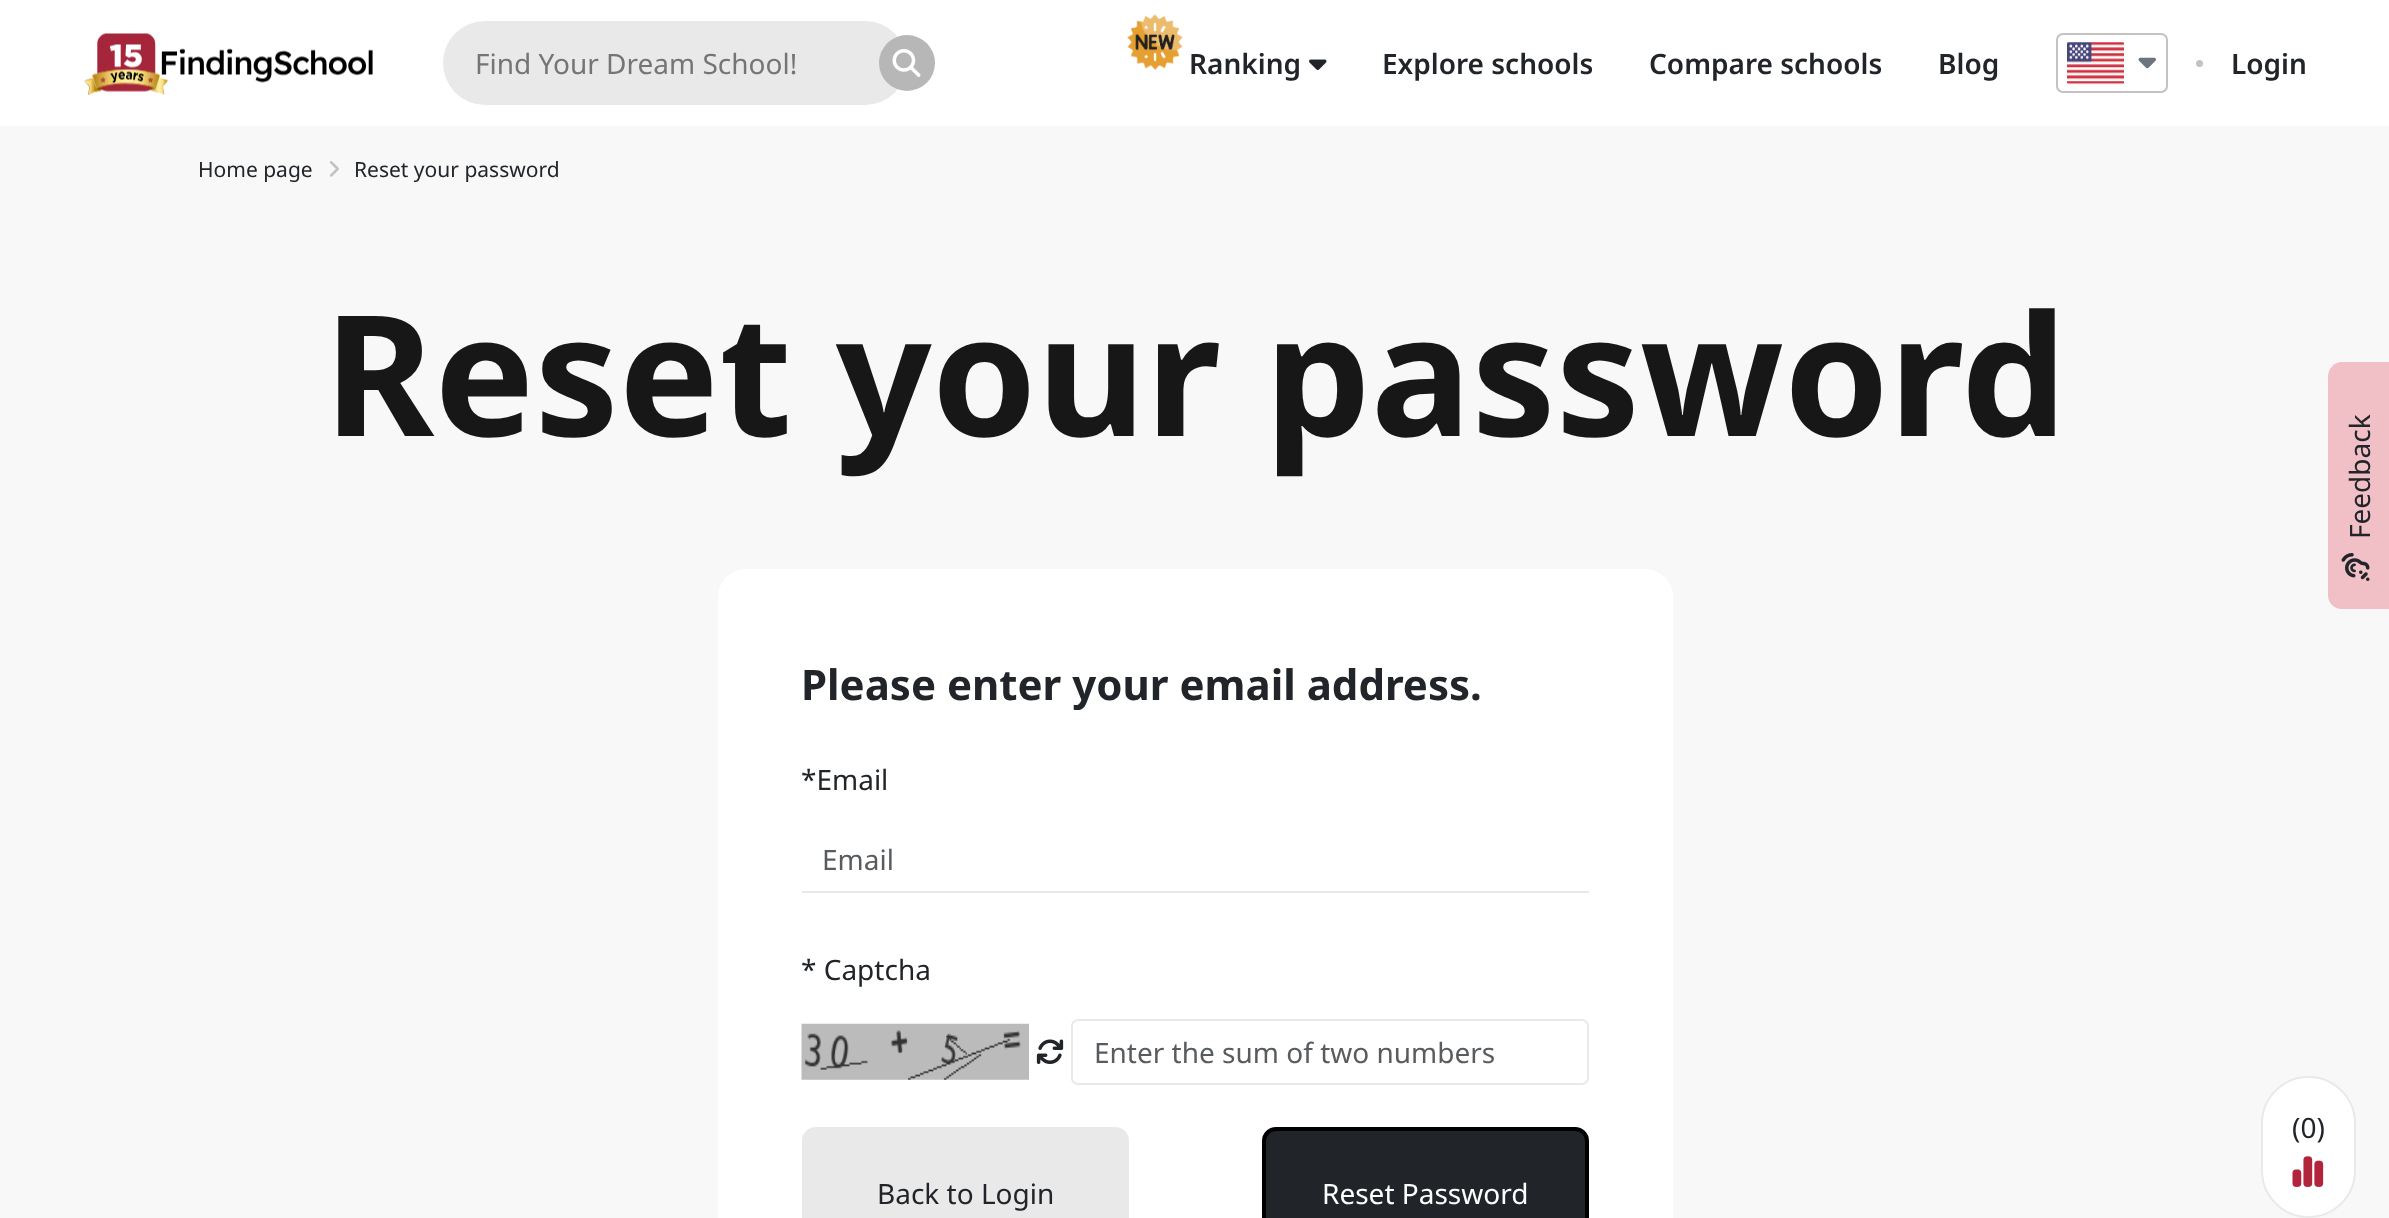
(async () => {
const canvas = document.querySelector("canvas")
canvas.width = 2389
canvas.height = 1218
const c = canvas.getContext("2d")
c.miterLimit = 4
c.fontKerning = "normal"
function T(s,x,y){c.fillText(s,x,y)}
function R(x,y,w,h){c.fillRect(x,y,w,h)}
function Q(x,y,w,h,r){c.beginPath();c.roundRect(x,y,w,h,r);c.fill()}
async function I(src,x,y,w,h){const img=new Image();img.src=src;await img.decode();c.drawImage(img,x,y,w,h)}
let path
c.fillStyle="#f8f8f8"
R(0,0,2389,1218)
c.fillStyle="#fff"
R(0,0,2389,126)
await I("1.png",84,33,289,62)
c.fillStyle="#e9e9e9"
Q(443,21,464,84,42)
c.font="28px Noto Sans"
c.fillStyle="#757575"
T("Find Your Dream School!",475,74)
c.fillStyle="#b7b7b7"
c.beginPath()
c.arc(907,63,28,0,7)
c.fill()
await I("2.png",892,49,29,28)
await I("3.png",1127,14,56,57)
c.font="600 28px Noto Sans"
c.fillStyle="#212529"
T("Ranking",1189,74)
await I("4.png",1309,59,18,11)
T("Explore schools",1382,74)
T("Compare schools",1649,74)
T("Blog",1938,74)
c.beginPath()
c.roundRect(2057,34,110,58,6)
c.strokeStyle="#c2c2c2"
c.lineWidth=2
c.stroke()
await I("5.png",2067,42,57,43)
await I("6.png",2138,57,18,12)
c.fillStyle="#c2c2c2"
c.beginPath()
c.arc(2199.5,63.5,3.5,0,7)
c.fill()
c.fillStyle="#212529"
T("Login",2231,74)
c.font="21px Noto Sans"
T("Home page",198,177)
await I("7.png",329,161,10,16)
T("Reset your password",354,177)
c.font="bold 168px Noto Sans"
c.fillStyle="#171717"
T("Reset your password",324,436)
c.fillStyle="#fff"
path = new Path2D("M2328 595v-219c0-7 6-14 14-14h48v247h-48c-8 0-14-6-14-14z")
c.fill(path)
c.fillStyle="#d02f444d"
path = new Path2D("M2328 595v-219c0-7 6-14 14-14h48v247h-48c-8 0-14-6-14-14z")
c.fill(path)
c.font="28px Noto Sans"
c.fillStyle="#212529"
c.save()
c.translate(2370,539)
c.rotate(-90 * Math.PI / 180)
c.fillText("Feedback",0,0)
c.restore()
await I("8.png",2341,553,29,28)
c.fillStyle="#fff"
Q(718,569,955,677,28)
c.font="bold 42px Noto Sans"
c.fillStyle="#212529"
T("Please enter your email address.",801,700)
c.font="28px Noto Sans"
T("*Email",801,790)
c.fillStyle="#e9e9e9"
R(802,891,787,2)
c.fillStyle="#595c5f"
T("Email",822,870)
c.fillStyle="#212529"
T("* Captcha",801,980)
await I("9.png",801,1023,228,57)
await I("10.png",1036,1039,28,25)
c.beginPath()
c.roundRect(1072,1020,516,64,6)
c.strokeStyle="#e9e9e9"
c.stroke()
c.fillStyle="#595c5f"
T("Enter the sum of two numbers",1094,1063)
c.fillStyle="#e9e9e9"
Q(802,1127,327,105,14)
c.fillStyle="#212529"
T("Back to Login",877,1204)
c.beginPath()
c.roundRect(1264,1129,323,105,12)
c.fill()
c.strokeStyle="#000"
c.lineWidth=4
c.stroke()
c.fillStyle="#fff"
T("Reset Password",1322,1204)
c.beginPath()
c.roundRect(2262,1077,93,140,46.5)
c.fill()
c.strokeStyle="#e9e9e9"
c.lineWidth=2
c.stroke()
c.fillStyle="#212529"
T("(0)",2292,1138)
await I("11.png",2292,1156,32,31)
})()
